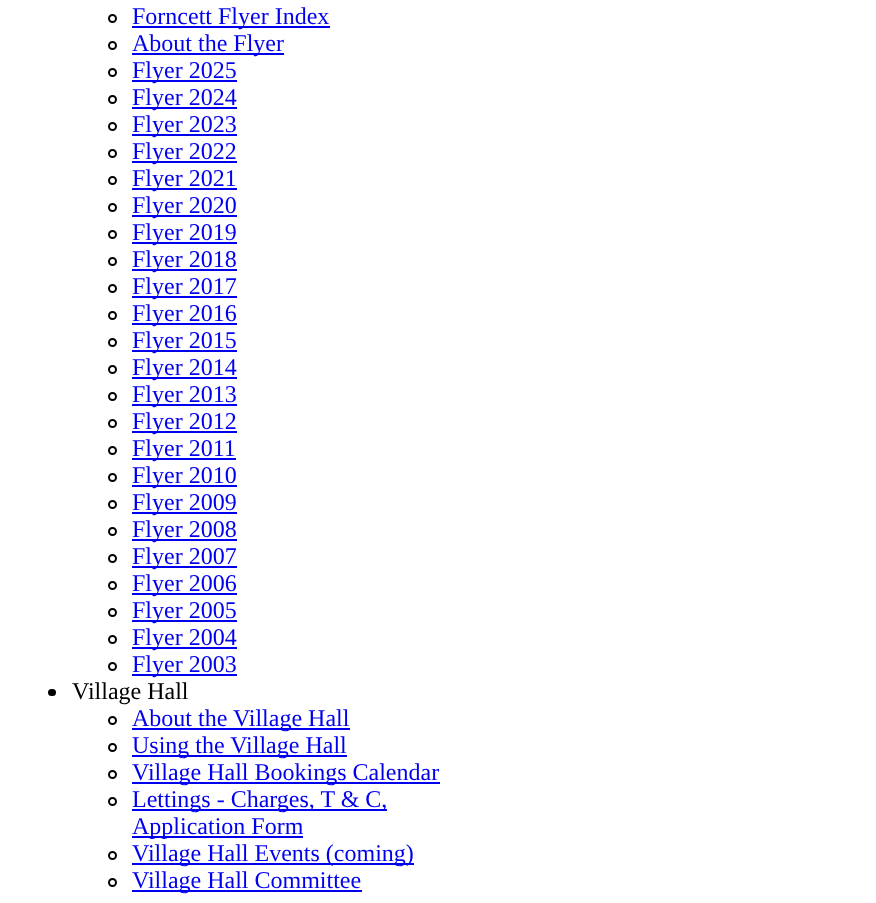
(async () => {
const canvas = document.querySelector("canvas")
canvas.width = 876
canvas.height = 903
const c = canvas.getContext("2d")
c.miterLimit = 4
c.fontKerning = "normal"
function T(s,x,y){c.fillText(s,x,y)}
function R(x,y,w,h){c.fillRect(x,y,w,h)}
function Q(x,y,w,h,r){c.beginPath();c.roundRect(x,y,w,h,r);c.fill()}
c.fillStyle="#fff"
R(0,0,876,903)
c.beginPath()
c.arc(112.5,18.5,3.5,0,7)
c.strokeStyle="#000"
c.lineWidth=2
c.stroke()
c.fillStyle="#00e"
R(132,26,198,2)
c.font="24px Liberation Serif"
T("Forncett Flyer Index",132,24)
c.beginPath()
c.arc(112.5,45.5,3.5,0,7)
c.stroke()
R(132,53,152,2)
T("About the Flyer",132,51)
c.beginPath()
c.arc(112.5,72.5,3.5,0,7)
c.stroke()
R(132,80,105,2)
T("Flyer 2025",132,78)
c.beginPath()
c.arc(112.5,99.5,3.5,0,7)
c.stroke()
R(132,107,105,2)
T("Flyer 2024",132,105)
c.beginPath()
c.arc(112.5,126.5,3.5,0,7)
c.stroke()
R(132,134,105,2)
T("Flyer 2023",132,132)
c.beginPath()
c.arc(112.5,153.5,3.5,0,7)
c.stroke()
R(132,161,105,2)
T("Flyer 2022",132,159)
c.beginPath()
c.arc(112.5,180.5,3.5,0,7)
c.stroke()
R(132,188,105,2)
T("Flyer 2021",132,186)
c.beginPath()
c.arc(112.5,207.5,3.5,0,7)
c.stroke()
R(132,215,105,2)
T("Flyer 2020",132,213)
c.beginPath()
c.arc(112.5,234.5,3.5,0,7)
c.stroke()
R(132,242,105,2)
T("Flyer 2019",132,240)
c.beginPath()
c.arc(112.5,261.5,3.5,0,7)
c.stroke()
R(132,269,105,2)
T("Flyer 2018",132,267)
c.beginPath()
c.arc(112.5,288.5,3.5,0,7)
c.stroke()
R(132,296,105,2)
T("Flyer 2017",132,294)
c.beginPath()
c.arc(112.5,315.5,3.5,0,7)
c.stroke()
R(132,323,105,2)
T("Flyer 2016",132,321)
c.beginPath()
c.arc(112.5,342.5,3.5,0,7)
c.stroke()
R(132,350,105,2)
T("Flyer 2015",132,348)
c.beginPath()
c.arc(112.5,369.5,3.5,0,7)
c.stroke()
R(132,377,105,2)
T("Flyer 2014",132,375)
c.beginPath()
c.arc(112.5,396.5,3.5,0,7)
c.stroke()
R(132,404,105,2)
T("Flyer 2013",132,402)
c.beginPath()
c.arc(112.5,423.5,3.5,0,7)
c.stroke()
R(132,431,105,2)
T("Flyer 2012",132,429)
c.beginPath()
c.arc(112.5,450.5,3.5,0,7)
c.stroke()
R(132,458,104,2)
T("Flyer 2011",132,456)
c.beginPath()
c.arc(112.5,477.5,3.5,0,7)
c.stroke()
R(132,485,105,2)
T("Flyer 2010",132,483)
c.beginPath()
c.arc(112.5,504.5,3.5,0,7)
c.stroke()
R(132,512,105,2)
T("Flyer 2009",132,510)
c.beginPath()
c.arc(112.5,531.5,3.5,0,7)
c.stroke()
R(132,539,105,2)
T("Flyer 2008",132,537)
c.beginPath()
c.arc(112.5,558.5,3.5,0,7)
c.stroke()
R(132,566,105,2)
T("Flyer 2007",132,564)
c.beginPath()
c.arc(112.5,585.5,3.5,0,7)
c.stroke()
R(132,593,105,2)
T("Flyer 2006",132,591)
c.beginPath()
c.arc(112.5,612.5,3.5,0,7)
c.stroke()
R(132,620,105,2)
T("Flyer 2005",132,618)
c.beginPath()
c.arc(112.5,639.5,3.5,0,7)
c.stroke()
R(132,647,105,2)
T("Flyer 2004",132,645)
c.beginPath()
c.arc(112.5,666.5,3.5,0,7)
c.stroke()
R(132,674,105,2)
T("Flyer 2003",132,672)
c.fillStyle="#000"
Q(48,689,8,7,3.5)
T("Village Hall",72,699)
c.beginPath()
c.arc(112.5,720.5,3.5,0,7)
c.stroke()
c.fillStyle="#00e"
R(132,728,218,2)
T("About the Village Hall",132,726)
c.beginPath()
c.arc(112.5,747.5,3.5,0,7)
c.stroke()
R(132,755,215,2)
T("Using the Village Hall",132,753)
c.beginPath()
c.arc(112.5,774.5,3.5,0,7)
c.stroke()
R(132,782,308,2)
T("Village Hall Bookings Calendar",132,780)
c.beginPath()
c.arc(112.5,801.5,3.5,0,7)
c.stroke()
R(132,809,255,2)
T("Lettings - Charges, T & C,",132,807)
R(132,836,171,2)
T("Application Form",132,834)
c.beginPath()
c.arc(112.5,855.5,3.5,0,7)
c.stroke()
R(132,863,282,2)
T("Village Hall Events (coming)",132,861)
c.beginPath()
c.arc(112.5,882.5,3.5,0,7)
c.stroke()
R(132,890,230,2)
T("Village Hall Committee",132,888)
})()
